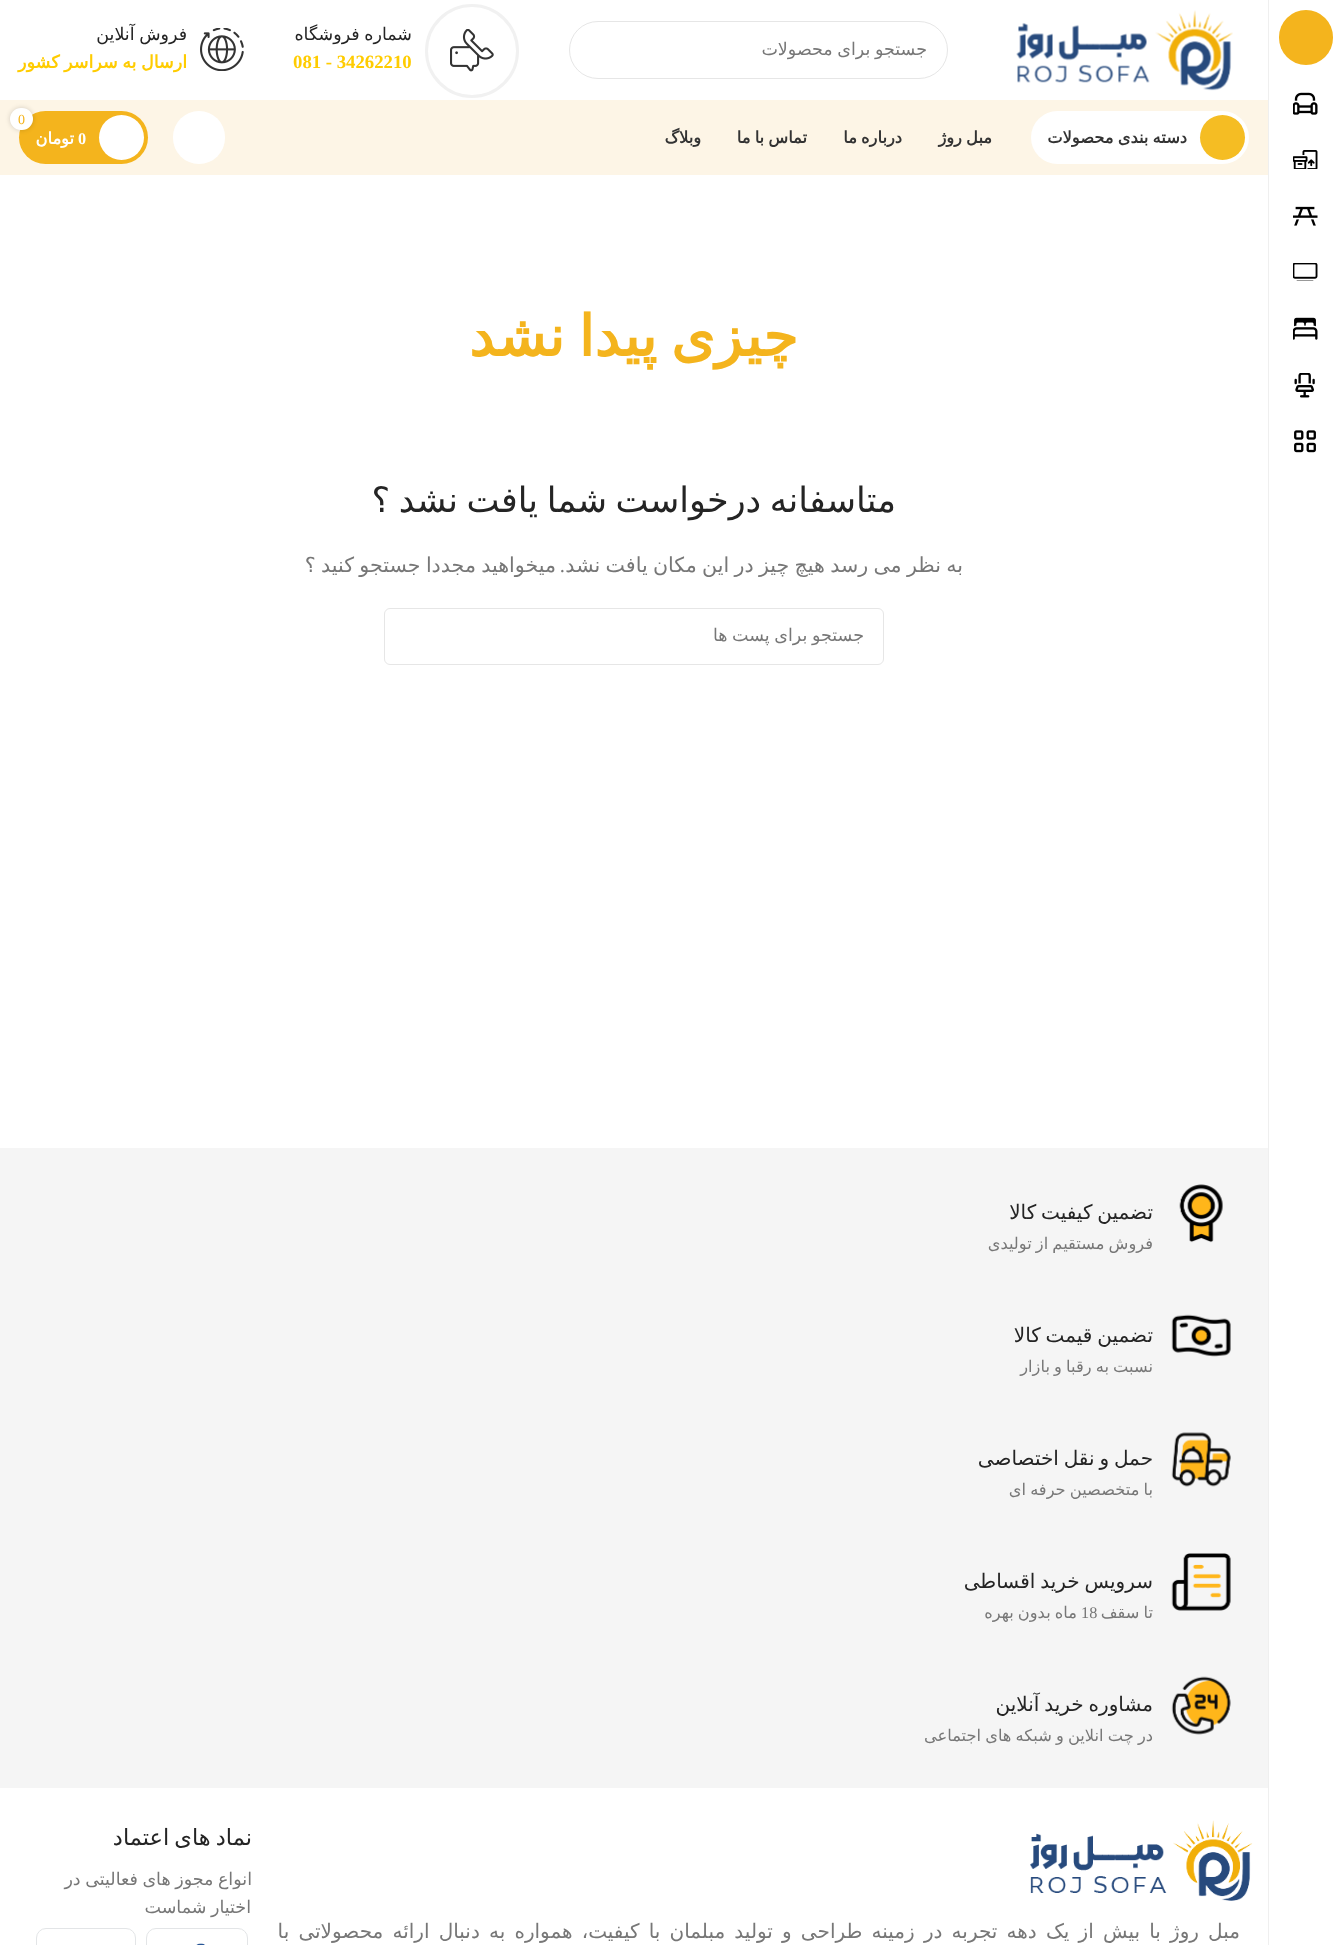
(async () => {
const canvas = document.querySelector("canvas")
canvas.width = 1342
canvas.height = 1945
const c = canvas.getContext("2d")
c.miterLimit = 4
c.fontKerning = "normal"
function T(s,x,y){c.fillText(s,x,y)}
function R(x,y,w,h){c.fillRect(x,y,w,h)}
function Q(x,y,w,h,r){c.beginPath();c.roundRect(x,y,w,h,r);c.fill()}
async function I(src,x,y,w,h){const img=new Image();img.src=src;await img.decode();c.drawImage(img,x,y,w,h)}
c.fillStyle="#fff"
R(0,0,1342,1945)
c.fillStyle="#efefef"
R(1268,0,1,1945)
c.fillStyle="#f4b41d"
Q(1279,10,54,55,27)
await I("1.png",1293,92,25,23)
await I("2.png",1293,150,25,19)
await I("3.png",1293,206,25,20)
await I("4.png",1293,263,25,18)
await I("5.png",1293,317,25,23)
await I("6.png",1294,373,21,25)
await I("7.png",1294,430,22,23)
await I("8.png",1016,10,217,81)
c.beginPath()
c.roundRect(569.5,21.5,378,57,28.5)
c.strokeStyle="#e6e6e6"
c.stroke()
c.wordSpacing="-1px"
c.direction="rtl"
c.font="17.5px DejaVu Sans"
c.fillStyle="#777"
T("جستجو برای محصولات",927,55)
c.beginPath()
c.arc(472,51,45.5,0,7)
c.strokeStyle="#f1f1f1"
c.lineWidth=3
c.stroke()
await I("9.png",450,29,44,43)
c.fillStyle="#242424"
T("شماره فروشگاه",412,40)
c.wordSpacing="0px"
c.direction="ltr"
c.font="bold 18.75px Liberation Serif"
c.fillStyle="#fc0"
T("081 - 34262210",293,68)
await I("10.png",200,28,44,43)
c.wordSpacing="-1px"
c.direction="rtl"
c.font="17.5px DejaVu Sans"
c.fillStyle="#242424"
T("فروش آنلاین",187,40)
c.font="bold 17.5px DejaVu Sans"
c.fillStyle="#fc0"
T("ارسال به سراسر کشور",187,68)
c.fillStyle="#fdf5e6"
R(0,100,1268,75)
c.fillStyle="#fff"
Q(1031,111,218,53,26.5)
c.fillStyle="#f5bd23"
c.beginPath()
c.arc(1222.5,137.5,22.5,0,7)
c.fill()
c.font="bold 16.25px DejaVu Sans"
c.fillStyle="#333"
T("دسته بندی محصولات",1187,143)
T("مبل روژ",992,143)
T("درباره ما",902,143)
T("تماس با ما",807,143)
c.wordSpacing="0px"
T("وبلاگ",701,143)
c.fillStyle="#fff"
Q(173,111,52,53,26)
c.fillStyle="#f4b41d"
Q(19,111,129,53,26.5)
c.fillStyle="#fff"
c.beginPath()
c.arc(121.5,137.5,22.5,0,7)
c.fill()
c.fillStyle="#0000002b"
c.filter="blur(2.5px)"
c.beginPath()
c.roundRect(10,108,23,22,11)
c.fill()
c.filter="none"
c.fillStyle="#fff"
Q(10,108,23,22,11)
c.direction="ltr"
c.font="14px Liberation Serif"
c.fillStyle="#f4b41d"
T("0",18,124)
c.font="bold 16.25px Liberation Serif"
c.fillStyle="#fff"
T("0",78,144)
c.direction="rtl"
c.font="bold 16.25px DejaVu Sans"
T("تومان",74,144)
c.wordSpacing="-4px"
c.font="bold 56.5px DejaVu Sans"
c.fillStyle="#f4b41d"
T("چیزی پیدا نشد",798,356)
c.wordSpacing="-2.5px"
c.font="35px DejaVu Sans"
c.fillStyle="#242424"
T("متاسفانه درخواست شما یافت نشد ؟",896,512)
c.wordSpacing="-1.25px"
c.font="20.6px DejaVu Sans"
c.fillStyle="#777"
T("به نظر می رسد هیچ چیز در این مکان یافت نشد",963,572)
c.wordSpacing="0px"
c.font="20.6px Liberation Serif"
T(".",565,572)
c.wordSpacing="-1.25px"
c.font="20.6px DejaVu Sans"
T("میخواهید مجددا جستجو کنید ؟",556,572)
c.beginPath()
c.roundRect(384.5,608.5,499,56,5.5)
c.strokeStyle="#e6e6e6"
c.lineWidth=1
c.stroke()
c.wordSpacing="-1px"
c.font="17.5px DejaVu Sans"
T("جستجو برای پست ها",864,641)
c.fillStyle="#f5f5f5"
R(0,1148,1268,640)
await I("11.png",1179,1184,44,59)
c.wordSpacing="-1.5px"
c.font="20px DejaVu Sans"
c.fillStyle="#242424"
T("تضمین کیفیت کالا",1153,1219)
c.wordSpacing="-1px"
c.font="16.25px DejaVu Sans"
c.fillStyle="#777"
T("فروش مستقیم از تولیدی",1153,1249)
await I("12.png",1171,1314,60,43)
c.wordSpacing="-1.5px"
c.font="20px DejaVu Sans"
c.fillStyle="#242424"
T("تضمین قیمت کالا",1153,1342)
c.wordSpacing="-1px"
c.font="16.25px DejaVu Sans"
c.fillStyle="#777"
T("نسبت به رقبا و بازار",1153,1372)
await I("13.png",1171,1432,60,55)
c.wordSpacing="-1.5px"
c.font="20px DejaVu Sans"
c.fillStyle="#242424"
T("حمل و نقل اختصاصی",1153,1465)
c.wordSpacing="-1px"
c.font="16.25px DejaVu Sans"
c.fillStyle="#777"
T("با متخصصین حرفه ای",1153,1495)
await I("14.png",1171,1553,60,58)
c.wordSpacing="-1.5px"
c.font="20px DejaVu Sans"
c.fillStyle="#242424"
T("سرویس خرید اقساطی",1153,1588)
c.wordSpacing="-1px"
c.font="16.25px DejaVu Sans"
c.fillStyle="#777"
T("تا سقف",1153,1618)
c.wordSpacing="0px"
c.direction="ltr"
c.font="16.25px Liberation Serif"
T("18",1081,1618)
c.wordSpacing="-1px"
c.direction="rtl"
c.font="16.25px DejaVu Sans"
T("ماه بدون بهره",1077,1618)
await I("15.png",1171,1676,60,59)
c.wordSpacing="-1.5px"
c.font="20px DejaVu Sans"
c.fillStyle="#242424"
T("مشاوره خرید آنلاین",1153,1711)
c.wordSpacing="-1px"
c.font="16.25px DejaVu Sans"
c.fillStyle="#777"
T("در چت انلاین و شبکه های اجتماعی",1153,1741)
c.wordSpacing="-2px"
c.font="22.5px DejaVu Sans"
c.fillStyle="#242424"
T("نماد های اعتماد",252,1845)
c.wordSpacing="-1px"
c.font="17.5px DejaVu Sans"
c.fillStyle="#777"
T("انواع مجوز های فعالیتی در",252,1885)
T("اختیار شماست",251,1913)
c.beginPath()
c.roundRect(146.5,1928.5,101,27,9.5)
c.strokeStyle="#e3e5e7"
c.stroke()
await I("16.png",196,1943,9,2)
c.beginPath()
c.roundRect(36.5,1928.5,99,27,9.5)
c.stroke()
await I("17.png",1030,1820,223,81)
c.wordSpacing="2.8px"
c.font="20px DejaVu Sans"
T("مبل روژ با بیش از یک دهه تجربه در زمینه طراحی و تولید مبلمان با کیفیت، همواره به دنبال ارائه محصولاتی با",1240,1938)
})()
